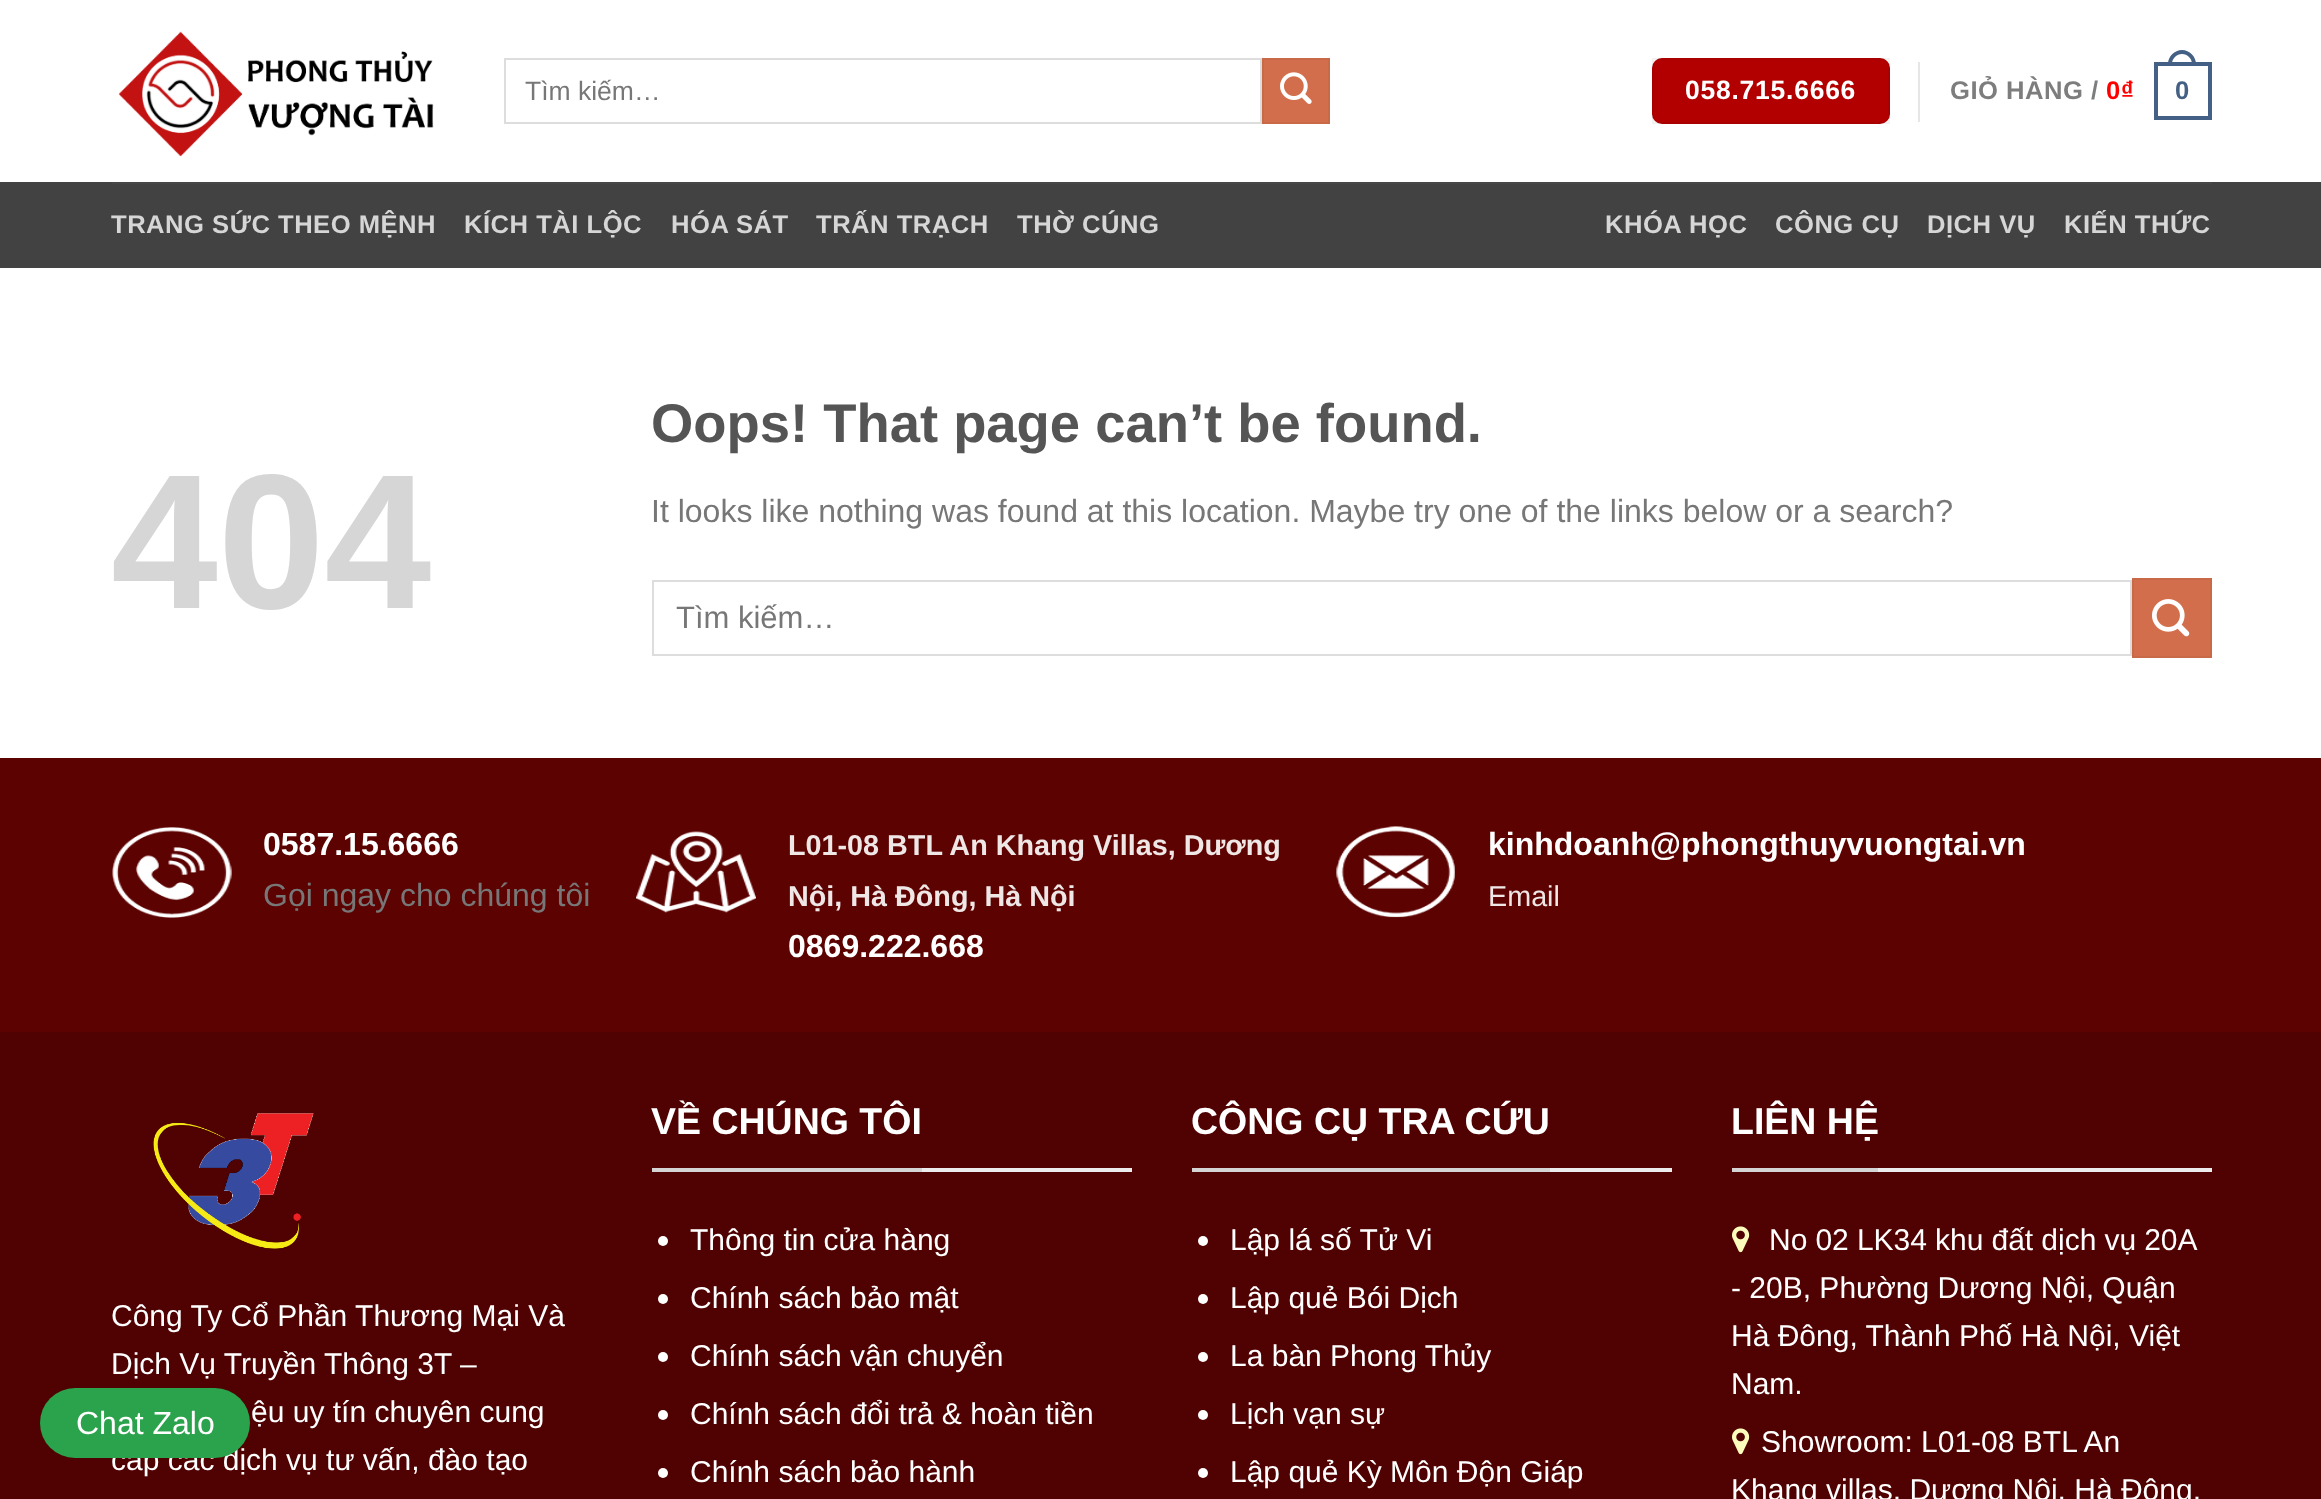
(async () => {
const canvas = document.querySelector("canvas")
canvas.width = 2321
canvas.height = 1499
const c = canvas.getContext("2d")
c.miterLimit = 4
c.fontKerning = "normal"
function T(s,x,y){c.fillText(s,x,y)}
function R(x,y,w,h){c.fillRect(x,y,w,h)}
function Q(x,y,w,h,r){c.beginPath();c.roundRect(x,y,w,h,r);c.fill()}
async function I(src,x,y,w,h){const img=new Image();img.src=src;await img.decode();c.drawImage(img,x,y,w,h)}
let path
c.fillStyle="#fff"
R(0,0,2321,1499)
await I("1.png",118,31,316,126)
c.strokeStyle="#ddd"
c.lineWidth=2
c.strokeRect(505,59,756,64)
c.font="26.5px Liberation Sans"
c.fillStyle="#777"
T("Tìm kiếm…",525,100)
c.fillStyle="#d26e4b"
c.beginPath()
c.rect(1263,59,66,64)
c.fill()
c.strokeStyle="#c86947"
c.stroke()
await I("2.png",1280,72,32,32)
c.fillStyle="#b20000"
Q(1652,58,238,66,10)
c.strokeStyle="#0000000d"
c.strokeRect(1653,59,236,64)
c.letterSpacing="0.75px"
c.font="bold 26.5px Liberation Sans"
c.fillStyle="#fff"
T("058.715.6666",1685,99)
c.fillStyle="#e6e6e6"
R(1918,62,2,60)
c.letterSpacing="0.5px"
c.font="bold 25.6px Liberation Sans"
c.fillStyle="#7d7d7d"
T("GIỎ HÀNG /",1950,99)
c.fillStyle="#f00"
T("0₫",2106,99)
c.strokeStyle="#446084"
c.lineWidth=4
c.strokeRect(2156,64,54,54)
c.fillStyle="#446084"
path = new Path2D("M2182 50c7.5 0 14 6.5 14 14v2h-28v-2c0-7.5 6.5-14 14-14zm0 4c5.5 0 10 4.5 10 10v2h-20v-2c0-5.5 4.5-10 10-10z")
c.fill(path,"evenodd")
T("0",2175,99)
c.fillStyle="#424242"
R(0,182,2321,86)
c.fillStyle="#474747"
R(112,182,2100,2)
c.fillStyle="#d6d6d6"
T("TRANG SỨC THEO MỆNH",111,233)
T("KÍCH TÀI LỘC",464,233)
T("HÓA SÁT",671,233)
T("TRẤN TRẠCH",816,233)
T("THỜ CÚNG",1017,233)
T("KHÓA HỌC",1605,233)
T("CÔNG CỤ",1775,233)
T("DỊCH VỤ",1927,233)
T("KIẾN THỨC",2064,233)
c.letterSpacing="0px"
c.font="bold 192px Liberation Sans"
T("404",111,608)
c.font="bold 54.4px Liberation Sans"
c.fillStyle="#555"
T("Oops! That page can’t be found.",651,442)
c.font="32px Liberation Sans"
c.fillStyle="#777"
T("It looks like nothing was found at this location. Maybe try one of the links below or a search?",651,522)
c.strokeStyle="#ddd"
c.lineWidth=2
c.strokeRect(653,581,1478,74)
c.font="31px Liberation Sans"
T("Tìm kiếm…",676,628)
c.fillStyle="#d26e4b"
c.beginPath()
c.rect(2133,579,78,78)
c.fill()
c.strokeStyle="#c86947"
c.stroke()
await I("3.png",2152,599,38,38)
c.fillStyle="#4f0201"
R(0,1032,2321,467)
c.fillStyle="#5c0201"
R(0,758,2321,274)
await I("4.png",112,827,120,91)
c.font="bold 32px Liberation Sans"
c.fillStyle="#fff"
T("0587.15.6666",263,855)
c.font="32px Liberation Sans"
c.fillStyle="#777"
T("Gọi ngay cho chúng tôi",263,906)
await I("5.png",636,831,120,82)
c.font="bold 28.75px Liberation Sans"
c.fillStyle="#efe6e6"
T("L01-08 BTL An Khang Villas, Dương",788,855)
T("Nội, Hà Đông, Hà Nội",788,906)
c.font="bold 32px Liberation Sans"
c.fillStyle="#fff"
T("0869.222.668",788,957)
await I("6.png",1336,826,119,92)
T("kinhdoanh@phongthuyvuongtai.vn",1488,855)
c.font="28.75px Liberation Sans"
c.fillStyle="#efe6e6"
T("Email",1488,906)
await I("7.png",153,1113,161,136)
c.font="30px Liberation Sans"
c.fillStyle="#fff"
T("Công Ty Cổ Phần Thương Mại Và",111,1326)
T("Dịch Vụ Truyền Thông 3T –",111,1374)
T("ệu uy tín chuyên cung",251,1422)
T("cấp các dịch vụ tư vấn, đào tạo",111,1470)
c.fillStyle="#ececec"
R(922,1168,210,4)
c.fillStyle="#d4d4d4"
R(652,1168,270,4)
c.font="bold 37.5px Liberation Sans"
c.fillStyle="#fff"
T("VỀ CHÚNG TÔI",651,1134)
c.beginPath()
c.arc(663,1241,5,0,7)
c.fill()
c.font="30px Liberation Sans"
T("Thông tin cửa hàng",690,1250)
c.beginPath()
c.arc(663,1299,5,0,7)
c.fill()
T("Chính sách bảo mật",690,1308)
c.beginPath()
c.arc(663,1357,5,0,7)
c.fill()
T("Chính sách vận chuyển",690,1366)
c.beginPath()
c.arc(663,1415,5,0,7)
c.fill()
T("Chính sách đổi trả & hoàn tiền",690,1424)
c.beginPath()
c.arc(663,1473,5,0,7)
c.fill()
T("Chính sách bảo hành",690,1482)
c.fillStyle="#ececec"
R(1550,1168,122,4)
c.fillStyle="#d4d4d4"
R(1192,1168,358,4)
c.font="bold 37.5px Liberation Sans"
c.fillStyle="#fff"
T("CÔNG CỤ TRA CỨU",1191,1134)
c.beginPath()
c.arc(1203,1241,5,0,7)
c.fill()
c.font="30px Liberation Sans"
T("Lập lá số Tử Vi",1230,1250)
c.beginPath()
c.arc(1203,1299,5,0,7)
c.fill()
T("Lập quẻ Bói Dịch",1230,1308)
c.beginPath()
c.arc(1203,1357,5,0,7)
c.fill()
T("La bàn Phong Thủy",1230,1366)
c.beginPath()
c.arc(1203,1415,5,0,7)
c.fill()
T("Lịch vạn sự",1230,1424)
c.beginPath()
c.arc(1203,1473,5,0,7)
c.fill()
T("Lập quẻ Kỳ Môn Độn Giáp",1230,1482)
c.fillStyle="#ececec"
R(1878,1168,334,4)
c.fillStyle="#d4d4d4"
R(1732,1168,146,4)
c.font="bold 37.5px Liberation Sans"
c.fillStyle="#fff"
T("LIÊN HỆ",1731,1134)
await I("8.png",1732,1226,18,27)
c.wordSpacing="-0.25px"
c.font="30px Liberation Sans"
T("No 02 LK34 khu đất dịch vụ 20A",1769,1250)
c.wordSpacing="0px"
T("- 20B, Phường Dương Nội, Quận",1731,1298)
T("Hà Đông, Thành Phố Hà Nội, Việt",1731,1346)
T("Nam.",1731,1394)
await I("8.png",1732,1428,18,27)
T("Showroom: L01-08 BTL An",1761,1452)
T("Khang villas, Dương Nội, Hà Đông,",1731,1500)
c.fillStyle="#2ba24c"
Q(40,1388,210,70,35)
c.font="32px Liberation Sans"
c.fillStyle="#fff"
T("Chat Zalo",76,1434)
})()
